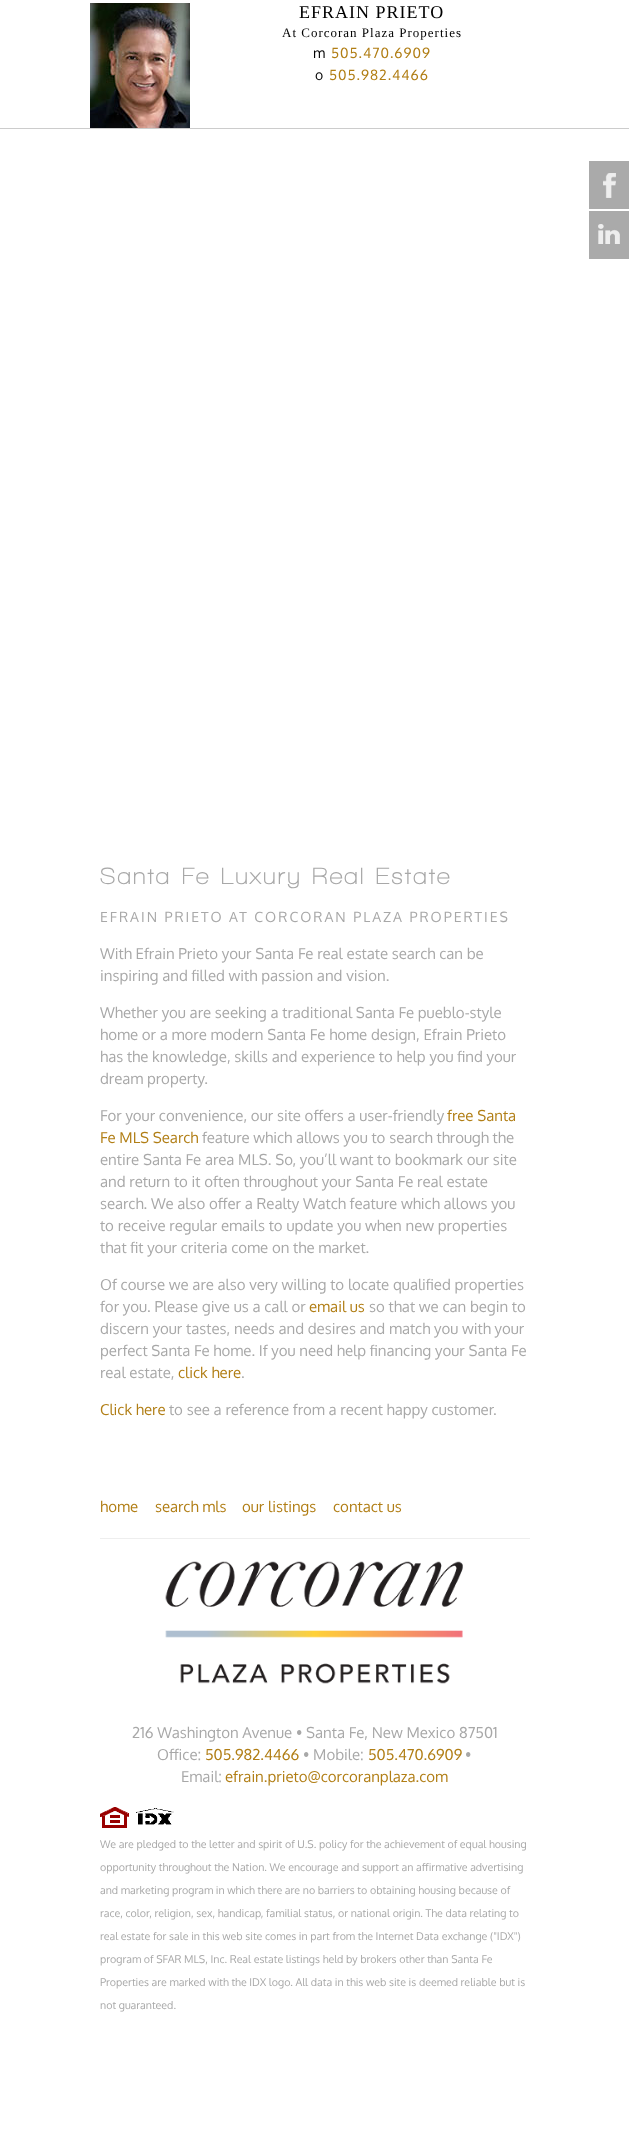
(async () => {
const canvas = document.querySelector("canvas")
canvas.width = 629
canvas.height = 2134
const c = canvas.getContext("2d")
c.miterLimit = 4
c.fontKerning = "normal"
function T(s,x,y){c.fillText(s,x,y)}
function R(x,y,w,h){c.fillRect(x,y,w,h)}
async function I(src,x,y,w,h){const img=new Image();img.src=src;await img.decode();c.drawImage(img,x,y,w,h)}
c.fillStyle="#fff"
R(0,0,629,2134)
c.fillStyle="#ccc"
R(0,128,629,1)
await I("1.png",90,3,100,125)
c.letterSpacing="1px"
c.font="18px Liberation Serif"
c.fillStyle="#000"
T("EFRAIN PRIETO",299,18)
c.font="13px Liberation Serif"
T("At Corcoran Plaza Properties",282,37)
c.font="14px Oxygen"
T("m",313,58)
c.fillStyle="#b17e15"
T("505.470.6909",331,58)
c.fillStyle="#000"
T("o",315,80)
c.fillStyle="#b17e15"
T("505.982.4466",329,80)
c.letterSpacing="2px"
c.font="bold 24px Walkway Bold"
c.fillStyle="#a8a8a8"
T("Santa Fe Luxury Real Estate",100,884)
c.font="14px Oxygen"
T("EFRAIN PRIETO AT CORCORAN PLAZA PROPERTIES",100,922)
c.letterSpacing="0px"
c.font="15px Oxygen"
T("With Efrain Prieto your Santa Fe real estate search can be",100,959)
T("inspiring and filled with passion and vision.",100,981)
T("Whether you are seeking a traditional Santa Fe pueblo-style",100,1018)
T("home or a more modern Santa Fe home design, Efrain Prieto",100,1040)
T("has the knowledge, skills and experience to help you find your",100,1062)
T("dream property.",100,1084)
T("For your convenience, our site offers a user-friendly",100,1121)
c.fillStyle="#b17e15"
T("free Santa",447,1121)
T("Fe MLS Search",100,1143)
c.fillStyle="#a8a8a8"
T("feature which allows you to search through the",202,1143)
T("entire Santa Fe area MLS. So, you’ll want to bookmark our site",100,1165)
T("and return to it often throughout your Santa Fe real estate",100,1187)
T("search. We also offer a Realty Watch feature which allows you",100,1209)
T("to receive regular emails to update you when new properties",100,1231)
T("that fit your criteria come on the market.",100,1253)
T("Of course we are also very willing to locate qualified properties",100,1290)
T("for you. Please give us a call or",100,1312)
c.fillStyle="#b17e15"
T("email us",309,1312)
c.fillStyle="#a8a8a8"
T("so that we can begin to",369,1312)
T("discern your tastes, needs and desires and match you with your",100,1334)
T("perfect Santa Fe home. If you need help financing your Santa Fe",100,1356)
T("real estate,",100,1378)
c.fillStyle="#b17e15"
T("click here",178,1378)
c.fillStyle="#a8a8a8"
T(".",241,1378)
c.fillStyle="#b17e15"
T("Click here",100,1415)
c.fillStyle="#a8a8a8"
T("to see a reference from a recent happy customer.",169,1415)
c.fillStyle="#b17e15"
T("home",100,1512)
T("search mls",155,1512)
T("our listings",242,1512)
T("contact us",333,1512)
c.fillStyle="#eee"
R(100,1538,430,1)
await I("2.png",165,1561,298,123)
c.fillStyle="#a8a8a8"
T("216 Washington Avenue • Santa Fe, New Mexico 87501",132,1738)
T("Office:",157,1760)
c.fillStyle="#b17e15"
T("505.982.4466",205,1760)
c.fillStyle="#a8a8a8"
T("• Mobile:",303,1760)
c.fillStyle="#b17e15"
T("505.470.6909",368,1760)
c.fillStyle="#a8a8a8"
T("•",465,1760)
T("Email:",181,1782)
c.fillStyle="#b17e15"
T("efrain.prieto@corcoranplaza.com",225,1782)
await I("3.png",100,1807,29,21)
await I("4.png",136,1808,38,17)
c.font="10.65px Oxygen"
c.fillStyle="#a8a8a8"
T("We are pledged to the letter and spirit of U.S. policy for the achievement of equal housing",100,1848)
T("opportunity throughout the Nation. We encourage and support an affirmative advertising",100,1871)
T("and marketing program in which there are no barriers to obtaining housing because of",100,1894)
T("race, color, religion, sex, handicap, familial status, or national origin. The data relating to",100,1917)
T("real estate for sale in this web site comes in part from the Internet Data exchange (\"IDX\")",100,1940)
T("program of SFAR MLS, Inc. Real estate listings held by brokers other than Santa Fe",100,1963)
T("Properties are marked with the IDX logo. All data in this web site is deemed reliable but is",100,1986)
T("not guaranteed.",100,2009)
c.fillStyle="#aaa"
R(589,161,40,48)
await I("5.png",603,173,13,25)
R(589,211,40,48)
await I("6.png",598,224,22,20)
})()
